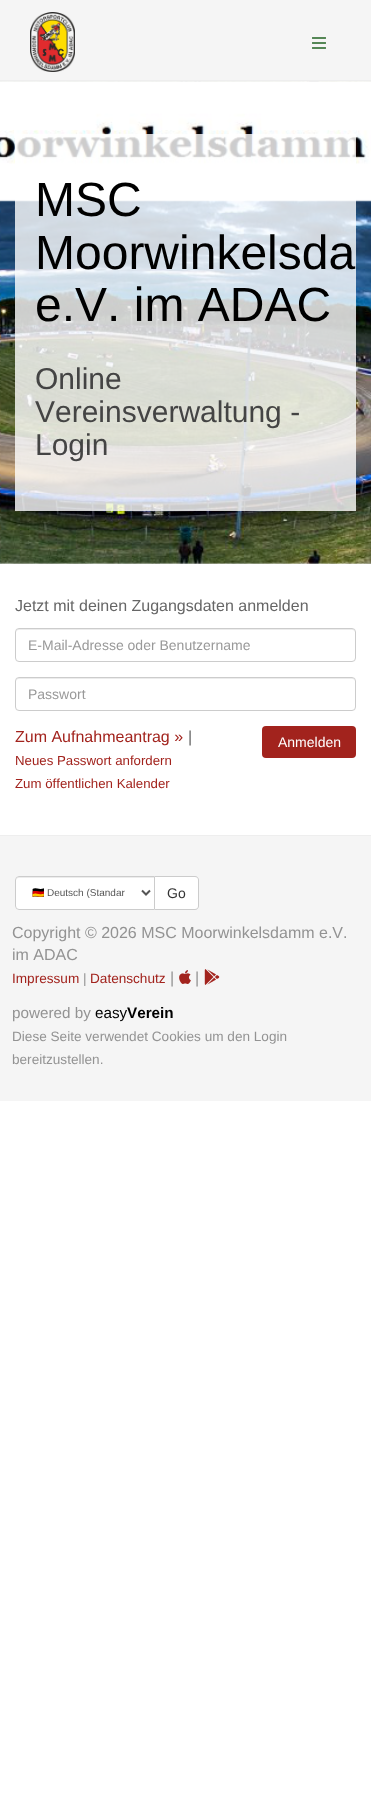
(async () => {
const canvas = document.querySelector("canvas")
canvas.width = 371
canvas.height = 1796
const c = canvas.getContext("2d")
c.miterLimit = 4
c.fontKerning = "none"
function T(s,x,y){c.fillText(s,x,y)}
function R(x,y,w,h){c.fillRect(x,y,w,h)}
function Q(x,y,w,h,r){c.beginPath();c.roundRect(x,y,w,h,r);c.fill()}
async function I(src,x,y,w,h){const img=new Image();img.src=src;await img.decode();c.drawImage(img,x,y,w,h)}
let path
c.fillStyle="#fff"
R(0,0,371,1796)
c.fillStyle="#f5f5f5"
R(0,0,371,80)
c.fillStyle="#eee"
R(0,80,371,1)
await I("1.png",30,12,45,60)
await I("2.png",312,37,14,12)
await I("3.png",0,81,371,483)
c.fillStyle="#ffffffcc"
R(15,134,341,377)
c.font="48px Liberation Sans"
c.fillStyle="#000"
T("MSC",35,216)
T("Moorwinkelsda",35,269)
T("e.V. im ADAC",35,321)
c.font="30px Liberation Sans"
c.fillStyle="#444"
T("Online",35,389)
T("Vereinsverwaltung -",35,422)
T("Login",35,455)
c.font="16px Liberation Sans"
c.fillStyle="#666"
T("Jetzt mit deinen Zugangsdaten anmelden",15,611)
c.fillStyle="#ececec"
path = new Path2D("M19 630h333c2 0 3 1 3 3c0-2-1-4-3-4h-333c-2 0-3 2-3 4c0-2 1-3 3-3z")
c.fill(path)
c.beginPath()
c.roundRect(15.5,628.5,340,33,3.5)
c.strokeStyle="#ccc"
c.stroke()
c.font="14px Liberation Sans"
c.fillStyle="#999"
T("E-Mail-Adresse oder Benutzername",28,650)
c.fillStyle="#ececec"
path = new Path2D("M19 679h333c2 0 3 1 3 3c0-2-1-4-3-4h-333c-2 0-3 2-3 4c0-2 1-3 3-3z")
c.fill(path)
c.beginPath()
c.roundRect(15.5,677.5,340,33,3.5)
c.stroke()
c.fillStyle="#999"
T("Passwort",28,699)
c.font="16px Liberation Sans"
c.fillStyle="#a2231d"
T("Zum Aufnahmeantrag »",15,742)
c.fillStyle="#666"
T("|",188,742)
c.font="13.25px Liberation Sans"
c.fillStyle="#a2231d"
T("Neues Passwort anfordern",15,765)
Q(262,726,94,32,4)
c.font="14px Liberation Sans"
c.fillStyle="#fff"
T("Anmelden",278,747)
c.font="13.25px Liberation Sans"
c.fillStyle="#a2231d"
T("Zum öffentlichen Kalender",15,788)
c.fillStyle="#f5f5f5"
R(0,836,371,265)
c.fillStyle="#eee"
R(0,835,371,1)
c.fillStyle="#fff"
c.beginPath()
c.roundRect(15,876,140,34,[4,0,0,4])
c.fill()
c.fillStyle="#ececec"
path = new Path2D("M19 878h135v-1h-135c-2 0-3 2-3 4c0-2 1-3 3-3z")
c.fill(path)
c.beginPath()
c.roundRect(15.5,876.5,139,33,[3.5,0,0,3.5])
c.stroke()
path = new Path2D("M142 890.5l4 4l4-4")
c.strokeStyle="#555"
c.lineWidth=2
c.stroke(path)
c.font="10px Noto Color Emoji"
c.fillStyle="#555"
T("🇩🇪",32,896)
c.font="10px Liberation Sans"
T("Deutsch (Standar",47,896)
c.fillStyle="#fff"
c.beginPath()
c.roundRect(155,877,43,32,[0,3,3,0])
c.fill()
c.fillStyle="#ccc"
path = new Path2D("M155 876h40c2 0 4 2 4 4v26c0 2-2 4-4 4h-40zm0 1h40c2 0 3 1 3 3v26c0 2-1 3-3 3h-40z")
c.fill(path,"evenodd")
c.font="14px Liberation Sans"
c.fillStyle="#333"
T("Go",167,898)
c.font="16px Liberation Sans"
c.fillStyle="#939393"
T("Copyright © 2026 MSC Moorwinkelsdamm e.V.",12,938)
T("im ADAC",12,960)
c.font="13.6px Liberation Sans"
c.fillStyle="#a2231d"
T("Impressum",12,983)
c.fillStyle="#939393"
T("|",83,983)
c.fillStyle="#a2231d"
T("Datenschutz",90,983)
c.font="16px Liberation Sans"
c.fillStyle="#939393"
T("|",170,983)
await I("4.png",179,970,12,14)
T("|",195,983)
await I("5.png",204,969,16,16)
c.font="15.25px Liberation Sans"
T("powered by",12,1018)
c.fillStyle="#000"
T("easy",95,1018)
c.font="bold 15.25px Liberation Sans"
T("Verein",127,1018)
c.font="13.6px Liberation Sans"
c.fillStyle="#939393"
T("Diese Seite verwendet Cookies um den Login",12,1041)
T("bereitzustellen.",12,1064)
})()
